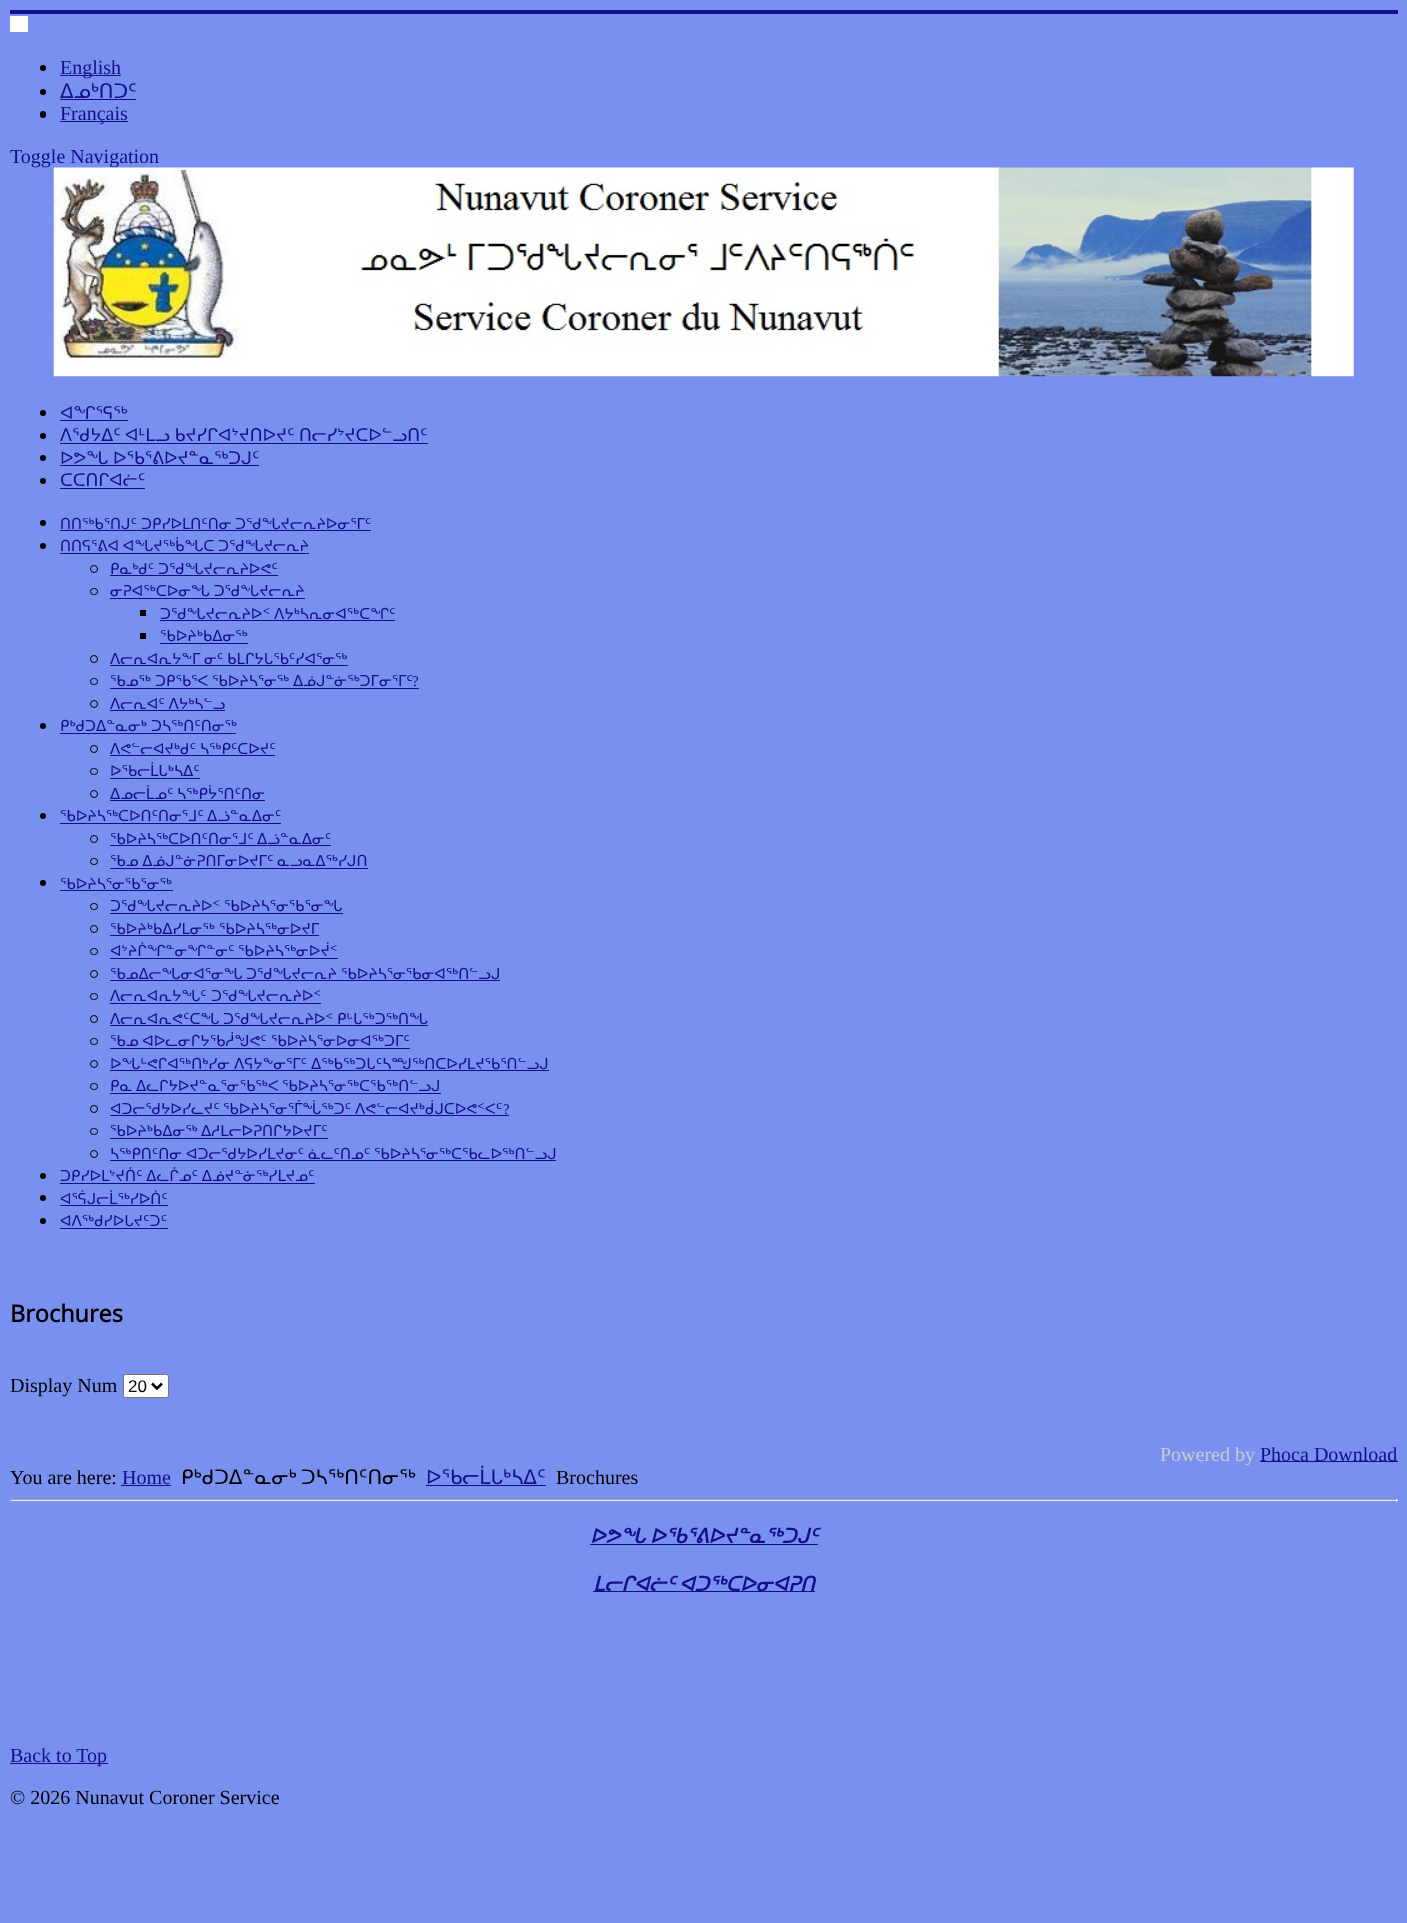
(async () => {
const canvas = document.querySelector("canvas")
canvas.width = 1407
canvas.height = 1923
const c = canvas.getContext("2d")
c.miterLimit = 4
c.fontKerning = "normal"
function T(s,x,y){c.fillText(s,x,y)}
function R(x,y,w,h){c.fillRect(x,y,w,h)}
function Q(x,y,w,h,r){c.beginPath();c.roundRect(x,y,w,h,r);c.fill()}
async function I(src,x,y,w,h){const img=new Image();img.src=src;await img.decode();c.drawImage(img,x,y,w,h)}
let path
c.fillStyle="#7890f0"
R(0,0,1407,1923)
c.fillStyle="#140e8a"
R(10,10,1388,4)
c.fillStyle="#fff"
R(10,16,18,16)
c.fillStyle="#000"
c.beginPath()
c.arc(43,68,3,0,7)
c.fill()
c.fillStyle="#140e8a"
R(60,75,61,1)
c.font="20px Liberation Serif"
T("English",60,74)
c.fillStyle="#000"
c.beginPath()
c.arc(43,92,3,0,7)
c.fill()
c.font="20px DejaVu Sans"
c.fillStyle="#140e8a"
T("ᐃᓄᒃᑎᑐᑦ",60,98)
R(60,99,76,1)
c.fillStyle="#000"
Q(40,111,6,7,3)
c.fillStyle="#140e8a"
R(60,121,68,1)
c.font="20px Liberation Serif"
T("Français",60,120)
T("Toggle Navigation",10,163)
await I("1.png",53,167,1301,210)
c.fillStyle="#000"
c.beginPath()
c.arc(43,413,3,0,7)
c.fill()
c.font="17.5px DejaVu Sans"
c.fillStyle="#140e8a"
T("ᐊᖏᕐᕋᖅ",60,419)
R(60,420,68,1)
c.fillStyle="#000"
c.beginPath()
c.arc(43,436,3,0,7)
c.fill()
c.fillStyle="#140e8a"
T("ᐱᖁᔭᐃᑦ",60,441)
R(60,443,368,1)
c.wordSpacing="-1px"
T("ᐊᒻᒪᓗ ᑲᔪᓯᒋᐊᔾᔪᑎᐅᔪᑦ",125,441)
c.wordSpacing="0px"
T("ᑎᓕᓯᔾᔪᑕᐅᓪᓗᑎᑦ",299,441)
c.fillStyle="#000"
c.beginPath()
c.arc(43,458,3,0,7)
c.fill()
c.fillStyle="#140e8a"
T("ᐅᕗᖓ",60,464)
R(60,465,199,1)
T("ᐅᖃᕐᕕᐅᔪᓐᓇᖅᑐᒍᑦ",113,464)
c.fillStyle="#000"
c.beginPath()
c.arc(43,481,3,0,7)
c.fill()
c.fillStyle="#140e8a"
T("ᑕᑕᑎᒋᐊᓖᑦ",60,486)
R(60,488,85,1)
c.fillStyle="#000"
c.beginPath()
c.arc(43,523,3,0,7)
c.fill()
c.font="15px DejaVu Sans"
c.fillStyle="#140e8a"
T("ᑎᑎᖅᑲᕐᑎᒍᑦ",60,529)
R(60,530,311,1)
T("ᑐᑭᓯᐅᒪᑎᑦᑎᓂ",141,529)
T("ᑐᖁᖓᔪᓕᕆᔨᐅᓂᕐᒥᑦ",235,529)
c.fillStyle="#000"
c.beginPath()
c.arc(43,546,3,0,7)
c.fill()
c.wordSpacing="-1px"
c.fillStyle="#140e8a"
T("ᑎᑎᕋᕐᕕᐊ ᐊᖓᔪᖅᑳᖓᑕ ᑐᖁᖓᔪᓕᕆᔨ",60,551)
R(60,553,249,1)
c.beginPath()
c.arc(94,569,3.5,0,7)
c.strokeStyle="#000"
c.stroke()
T("ᑭᓇᒃᑯᑦ ᑐᖁᖓᔪᓕᕆᔨᐅᕙᑦ",110,574)
R(110,575,168,1)
c.beginPath()
c.roundRect(90.5,588.5,7,6,3)
c.stroke()
T("ᓂᕈᐊᖅᑕᐅᓂᖓ ᑐᖁᖓᔪᓕᕆᔨ",110,596)
R(110,598,195,1)
c.fillStyle="#000"
R(140,610,6,6)
c.wordSpacing="0px"
c.fillStyle="#140e8a"
T("ᑐᖁᖓᔪᓕᕆᔨᐅᑉ",160,619)
R(160,620,235,1)
T("ᐱᔭᒃᓴᕆᓂᐊᖅᑕᖏᑦ",274,619)
c.fillStyle="#000"
R(140,633,6,6)
c.fillStyle="#140e8a"
T("ᖃᐅᔨᒃᑲᐃᓂᖅ",160,641)
R(160,643,88,1)
c.beginPath()
c.arc(94,659,3.5,0,7)
c.stroke()
c.wordSpacing="-1px"
T("ᐱᓕᕆᐊᕆᔭᖕᒥ ᓂᑦ ᑲᒪᒋᔭᒐᖃᑦᓯᐊᕐᓂᖅ",110,664)
R(110,665,238,1)
c.beginPath()
c.roundRect(90.5,678.5,7,6,3)
c.stroke()
c.wordSpacing="0px"
T("ᖃᓄᖅ",110,686)
c.wordSpacing="-1px"
T("ᑐᑭᖃᕐᐸ ᖃᐅᔨᓴᕐᓂᖅ",155,686)
c.wordSpacing="0px"
T("ᐃᓅᒍᓐᓃᖅᑐᒥᓂᕐᒥᑦ",293,686)
c.font="15px Liberation Serif"
T("?",412,686)
R(110,688,309,1)
c.beginPath()
c.arc(94,704,3.5,0,7)
c.stroke()
c.wordSpacing="-1px"
c.font="15px DejaVu Sans"
T("ᐱᓕᕆᐊᑦ ᐱᔭᒃᓴᓪᓗ",110,709)
R(110,710,115,1)
c.fillStyle="#000"
c.beginPath()
c.arc(43,726,3,0,7)
c.fill()
c.wordSpacing="0px"
c.fillStyle="#140e8a"
T("ᑭᒃᑯᑐᐃᓐᓇᓂᒃ",60,731)
R(60,733,176,1)
T("ᑐᓴᖅᑎᑦᑎᓂᖅ",151,731)
c.beginPath()
c.arc(94,749,3.5,0,7)
c.stroke()
T("ᐱᕙᓪᓕᐊᔪᒃᑯᑦ",110,754)
R(110,755,165,1)
T("ᓴᖅᑭᑦᑕᐅᔪᑦ",200,754)
c.beginPath()
c.roundRect(90.5,768.5,7,6,3)
c.stroke()
T("ᐅᖃᓕᒫᒐᒃᓴᐃᑦ",110,776)
R(110,778,90,1)
c.beginPath()
c.arc(94,794,3.5,0,7)
c.stroke()
T("ᐃᓄᓕᒫᓄᑦ",110,799)
T("ᓴᖅᑭᔮᕐᑎᑦᑎᓂ",177,799)
R(110,800,155,1)
c.fillStyle="#000"
c.beginPath()
c.arc(43,816,3,0,7)
c.fill()
c.fillStyle="#140e8a"
T("ᖃᐅᔨᓴᖅᑕᐅᑎᑦᑎᓂᕐᒧᑦ",60,821)
R(60,823,221,1)
T("ᐃᓘᓐᓇᐃᓂᑦ",207,821)
c.beginPath()
c.arc(94,839,3.5,0,7)
c.stroke()
T("ᖃᐅᔨᓴᖅᑕᐅᑎᑦᑎᓂᕐᒧᑦ",110,844)
R(110,845,221,1)
T("ᐃᓘᓐᓇᐃᓂᑦ",257,844)
c.beginPath()
c.roundRect(90.5,858.5,7,6,3)
c.stroke()
c.wordSpacing="-1px"
T("ᖃᓄ ᐃᓅᒍᓐᓃᕈᑎᒥᓂᐅᔪᒥᑦ",110,866)
R(110,868,258,1)
c.wordSpacing="0px"
T("ᓇᓗᓇᐃᖅᓯᒍᑎ",277,866)
c.fillStyle="#000"
c.beginPath()
c.arc(43,883,3,0,7)
c.fill()
c.fillStyle="#140e8a"
T("ᖃᐅᔨᓴᕐᓂᖃᕐᓂᖅ",60,889)
R(60,890,113,1)
c.beginPath()
c.roundRect(90.5,903.5,7,6,3)
c.stroke()
T("ᑐᖁᖓᔪᓕᕆᔨᐅᑉ",110,911)
R(110,913,233,1)
T("ᖃᐅᔨᓴᕐᓂᖃᕐᓂᖓ",224,911)
c.beginPath()
c.arc(94,929,3.5,0,7)
c.stroke()
T("ᖃᐅᔨᒃᑲᐃᓯᒪᓂᖅ",110,934)
R(110,935,209,1)
T("ᖃᐅᔨᓴᖅᓂᐅᔪᒥ",219,934)
c.beginPath()
c.roundRect(90.5,948.5,7,6,3)
c.stroke()
T("ᐊᔾᔨᒌᖏᓐᓂᖏᓐᓂᑦ",110,956)
R(110,958,228,1)
T("ᖃᐅᔨᓴᖅᓂᐅᔫᑉ",238,956)
c.beginPath()
c.arc(94,974,3.5,0,7)
c.stroke()
T("ᖃᓄᐃᓕᖓᓂᐊᕐᓂᖓ",110,979)
R(110,980,390,1)
T("ᑐᖁᖓᔪᓕᕆᔨ",246,979)
T("ᖃᐅᔨᓴᕐᓂᖃᓂᐊᖅᑎᓪᓗᒍ",341,979)
c.beginPath()
c.roundRect(90.5,993.5,7,6,3)
c.stroke()
T("ᐱᓕᕆᐊᕆᔭᖓᑦ",110,1001)
R(110,1003,211,1)
T("ᑐᖁᖓᔪᓕᕆᔨᐅᑉ",211,1001)
c.beginPath()
c.arc(94,1019,3.5,0,7)
c.stroke()
T("ᐱᓕᕆᐊᕆᕙᑦᑕᖓ",110,1024)
R(110,1025,318,1)
T("ᑐᖁᖓᔪᓕᕆᔨᐅᑉ",223,1024)
T("ᑭᒡᒐᖅᑐᖅᑎᖓ",337,1024)
c.beginPath()
c.roundRect(90.5,1038.5,7,6,3)
c.stroke()
c.wordSpacing="-1px"
T("ᖃᓄ ᐊᐅᓚᓂᒋᔭᖃᓲᖑᕙᑦ",110,1046)
c.wordSpacing="0px"
T("ᖃᐅᔨᓴᕐᓂᐅᓂᐊᖅᑐᒥᑦ",271,1046)
R(110,1048,300,1)
c.beginPath()
c.arc(94,1064,3.5,0,7)
c.stroke()
T("ᐅᖓᒡᕙᒋᐊᖅᑎᒃᓯᓂ",110,1069)
R(110,1070,439,1)
c.wordSpacing="-1px"
T("ᐱᕋᔭᖕᓂᕐᒥᑦ ᐃᖅᑲᖅᑐᒐᑦᓴᙳᖅᑎᑕᐅᓯᒪᔪᖃᕐᑎᓪᓗᒍ",234,1069)
c.beginPath()
c.roundRect(90.5,1083.5,7,6,3)
c.stroke()
c.wordSpacing="0px"
T("ᑭᓇ",110,1091)
T("ᐃᓚᒋᔭᐅᔪᓐᓇᕐᓂᖃᖅᐸ",136,1091)
R(110,1093,331,1)
T("ᖃᐅᔨᓴᕐᓂᖅᑕᖃᖅᑎᓪᓗᒍ",282,1091)
c.beginPath()
c.arc(94,1109,3.5,0,7)
c.stroke()
T("ᐊᑐᓕᖁᔭᐅᓯᓚᔪᑦ",110,1114)
T("ᖃᐅᔨᓴᕐᓂᕐᒦᖔᖅᑐᑦ",223,1114)
T("ᐱᕙᓪᓕᐊᔪᒃᑰᒍᑕᐅᕙᑉᐸᑦ",355,1114)
c.font="15px Liberation Serif"
T("?",503,1114)
R(110,1115,399,1)
c.beginPath()
c.roundRect(90.5,1128.5,7,6,3)
c.stroke()
c.font="15px DejaVu Sans"
T("ᖃᐅᔨᒃᑲᐃᓂᖅ",110,1136)
R(110,1138,218,1)
T("ᐃᓱᒪᓕᐅᕈᑎᒋᔭᐅᔪᒥᑦ",201,1136)
c.beginPath()
c.arc(94,1154,3.5,0,7)
c.stroke()
T("ᓴᖅᑭᑎᑦᑎᓂ",110,1159)
T("ᐊᑐᓕᖁᔭᐅᓯᒪᔪᓂᑦ",186,1159)
R(110,1160,446,1)
T("ᓈᓚᑦᑎᓄᑦ",308,1159)
T("ᖃᐅᔨᓴᕐᓂᖅᑕᖃᓚᐅᖅᑎᓪᓗᒍ",374,1159)
c.fillStyle="#000"
c.beginPath()
c.arc(43,1176,3,0,7)
c.fill()
c.wordSpacing="-1px"
c.fillStyle="#140e8a"
T("ᑐᑭᓯᐅᒪᔾᔪᑏᑦ ᐃᓚᒌᓄᑦ ᐃᓅᔪᓐᓃᖅᓯᒪᔪᓄᑦ",60,1181)
R(60,1183,255,1)
c.fillStyle="#000"
c.beginPath()
c.arc(43,1198,3,0,7)
c.fill()
c.wordSpacing="0px"
c.fillStyle="#140e8a"
T("ᐊᕐᕌᒍᓕᒫᖅᓯᐅᑏᑦ",60,1204)
R(60,1205,108,1)
c.fillStyle="#000"
c.beginPath()
c.arc(43,1221,3,0,7)
c.fill()
c.fillStyle="#140e8a"
T("ᐊᐱᖅᑯᓯᐅᒐᔪᑦᑐᑦ",60,1226)
R(60,1228,108,1)
c.font="bold 23.5px Open Sans"
c.fillStyle="#000"
T("Brochures",10,1322)
c.font="20px Liberation Serif"
T("Display Num",10,1392)
c.fillStyle="#fff"
c.beginPath()
c.roundRect(123.5,1374.5,45,23,2)
c.fill()
c.strokeStyle="#767676"
c.stroke()
path = new Path2D("M152 1383.5l5 5l5-5")
c.strokeStyle="#000"
c.lineWidth=2.5
c.stroke(path)
c.font="17px Liberation Sans"
c.fillStyle="#000"
T("20",128,1392)
c.font="20px Liberation Serif"
c.fillStyle="#ccc"
T("Powered by",1160,1461)
c.fillStyle="#140e8a"
R(1260,1461,138,1)
T("Phoca Download",1260,1461)
c.fillStyle="#000"
T("You are here:",10,1484)
c.fillStyle="#140e8a"
T("Home",122,1484)
R(121,1485,50,1)
c.font="20px DejaVu Sans"
c.fillStyle="#000"
T("ᑭᒃᑯᑐᐃᓐᓇᓂᒃ",181,1484)
T("ᑐᓴᖅᑎᑦᑎᓂᖅ",301,1484)
c.fillStyle="#140e8a"
T("ᐅᖃᓕᒫᒐᒃᓴᐃᑦ",426,1484)
R(426,1485,120,1)
c.font="20px Liberation Serif"
c.fillStyle="#000"
T("Brochures",556,1484)
c.fillStyle="#9f9f9f"
R(10,1499,1388,1)
c.fillStyle="#eee"
R(1396,1499,1,3)
R(10,1500,1388,1)
c.fillStyle="#9f9f9f"
R(10,1499,1,3)
c.font="italic bold 20px DejaVu Sans"
c.fillStyle="#140e8a"
T("ᐅᕗᖓ",590,1543)
R(590,1544,228,1)
T("ᐅᖃᕐᕕᐅᔪᓐᓇᖅᑐᒍᑦ",650,1543)
T("ᒪᓕᒋᐊᓖᑦ",593,1591)
R(593,1591,222,1)
T("ᐊᑐᖅᑕᐅᓂᐊᕈᑎ",679,1591)
R(10,1763,98,1)
c.font="20px Liberation Serif"
T("Back to Top",10,1762)
c.fillStyle="#000"
T("© 2026 Nunavut Coroner Service",10,1804)
})()
